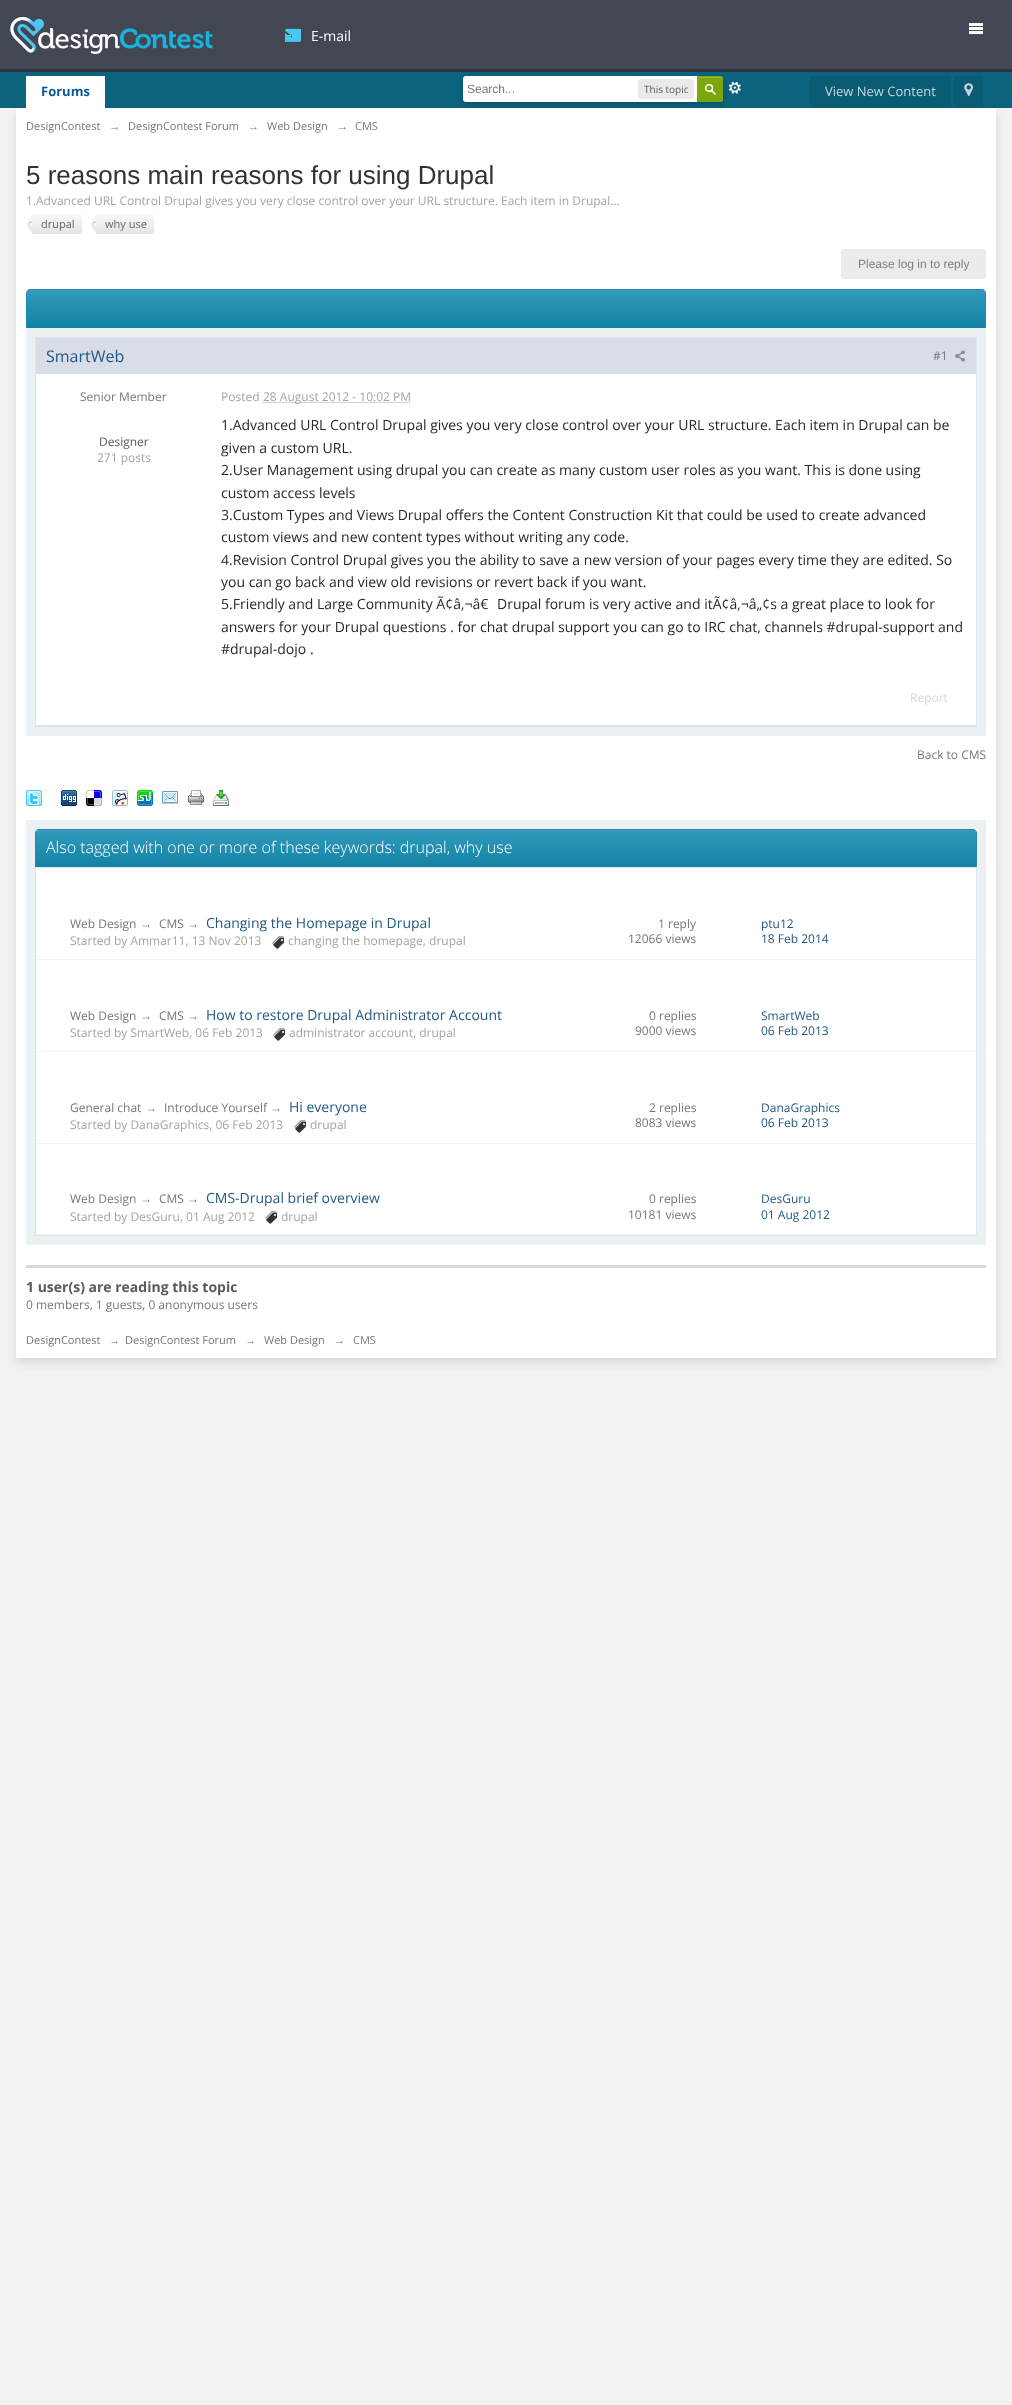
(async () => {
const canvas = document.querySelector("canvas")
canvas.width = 1012
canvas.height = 2405
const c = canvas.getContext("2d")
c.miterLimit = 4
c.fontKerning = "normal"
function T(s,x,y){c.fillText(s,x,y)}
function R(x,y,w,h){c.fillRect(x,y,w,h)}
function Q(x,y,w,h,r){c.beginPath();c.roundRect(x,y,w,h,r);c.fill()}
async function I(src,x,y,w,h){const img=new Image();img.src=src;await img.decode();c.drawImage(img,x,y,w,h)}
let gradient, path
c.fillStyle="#f2f2f2"
R(0,0,1012,2405)
c.fillStyle="#434753"
R(0,0,1012,69)
c.fillStyle="#0c637d"
R(0,72,1012,36)
await I("6.png",729,82,12,12)
c.fillStyle="#0000001a"
c.filter="blur(4.5px)"
c.beginPath()
c.rect(16,113,980,1250)
c.fill()
c.filter="none"
c.fillStyle="#fff"
R(16,108,980,1250)
c.fillStyle="#00000033"
c.filter="blur(2px)"
c.beginPath()
c.roundRect(463,78,260,26,4)
c.fill()
c.filter="none"
c.fillStyle="#2f323b"
R(0,69,1012,3)
await I("1.png",10,17,203,37)
await I("2.png",285,29,16,13)
await I("3.png",285,28,16,14)
c.font="14px Open Sans"
c.fillStyle="#fff"
T("E-mail",311,41)
await I("4.png",969,23,14,12)
R(26,76,79,32)
c.font="bold 13px Open Sans"
c.fillStyle="#0b5794"
T("Forums",41,96)
c.fillStyle="#fff"
c.beginPath()
c.roundRect(463,76,260,26,[3,4,4,3])
c.fill()
c.font="12px Liberation Sans"
c.fillStyle="#777"
T("Search...",467,93)
c.fillStyle="#eaeaea"
Q(638,79,56,20,3)
c.font="10px Open Sans"
c.fillStyle="#5a5a5a"
T("This topic",644,93)
c.fillStyle="#7ba60d"
c.beginPath()
c.roundRect(697,76,26,26,[0,3,3,0])
c.fill()
await I("5.png",705,84,11,11)
c.fillStyle="#95b83d"
path = new Path2D("M698 78h22c1 0 2 1 2 2v-1c0-1-1-2-2-2h-22z")
c.fill(path)
c.beginPath()
c.roundRect(697.5,76.5,25,25,[0,2.5,2.5,0])
c.strokeStyle="#7ba60d"
c.stroke()
c.fillStyle="#0a5c75"
R(810,76,141,32)
c.font="13px Open Sans"
c.fillStyle="#c5d5e2"
T("View New Content",825,96)
c.fillStyle="#0a5c75"
R(954,76,29,32)
await I("7.png",964,83,9,13)
c.font="11px Open Sans"
c.fillStyle="#777"
T("DesignContest",26,130)
c.font="11px Liberation Sans"
T("→",109,130)
c.font="11px Open Sans"
T("DesignContest Forum",128,130)
c.font="11px Liberation Sans"
T("→",248,130)
c.font="11px Open Sans"
T("Web Design",267,130)
c.font="11px Liberation Sans"
T("→",337,130)
c.font="11px Open Sans"
T("CMS",355,130)
c.font="26px Liberation Sans"
c.fillStyle="#323232"
T("5 reasons main reasons for using Drupal",26,184)
c.font="12px Open Sans"
c.fillStyle="#a4a4a4"
T("1.Advanced URL Control Drupal gives you very close control over your URL structure. Each item in Drupal...",26,205)
await I("8.png",26,214,56,20)
c.font="11px Open Sans"
c.fillStyle="#656565"
T("drupal",41,228)
await I("9.png",90,214,64,20)
T("why use",105,228)
c.fillStyle="#ebebeb"
Q(841,249,145,30,3)
c.font="12px Liberation Sans"
c.fillStyle="#7f7f7f"
T("Please log in to reply",858,268)
gradient = c.createLinearGradient(506,290,506,328)
gradient.addColorStop(0,"#319bbc")
gradient.addColorStop(1,"#1482a4")
c.fillStyle = gradient
c.beginPath()
c.roundRect(27,290,958,38,[3,3,0,0])
c.fill()
c.fillStyle="#528cbc"
path = new Path2D("M30 291h952c2 0 3 1 3 3c0-2-1-4-3-4h-952c-2 0-3 2-3 4c0-2 1-3 3-3z")
c.fill(path)
c.fillStyle="#1d8caf"
path = new Path2D("M30 289h952c2 0 4 2 4 4v35h-960v-35c0-2 2-4 4-4zm0 1h952c2 0 3 1 3 3v35h-958v-35c0-2 1-3 3-3z")
c.fill(path,"evenodd")
c.fillStyle="#ebf0f3"
R(26,328,960,408)
c.fillStyle="#fff"
R(36,374,940,351)
c.strokeStyle="#dbe4ef"
c.strokeRect(35.5,337.5,941,389)
c.fillStyle="#d6e2eb"
R(36,725,940,1)
c.fillStyle="#d8dde8"
R(36,338,940,36)
c.font="16px Open Sans"
c.fillStyle="#225985"
T("SmartWeb",46,362)
c.font="12px Open Sans"
c.fillStyle="#777"
T("#1",933,360)
await I("10.png",955,350,10,12)
T("Senior Member",80,401)
c.fillStyle="#5a5a5a"
T("Designer",99,446)
c.fillStyle="#a4a4a4"
T("271 posts",97,462)
T("Posted",221,401)
path = new Path2D("M262.5 402.5h148")
c.strokeStyle="#a4a4a4"
c.setLineDash([1,1])
c.stroke(path)
T("28 August 2012 - 10:02 PM",263,401)
c.font="14px Open Sans"
c.fillStyle="#282828"
T("1.Advanced URL Control Drupal gives you very close control over your URL structure. Each item in Drupal can be",221,430)
T("given a custom URL.",221,453)
T("2.User Management using drupal you can create as many custom user roles as you want. This is done using",221,475)
T("custom access levels",221,498)
T("3.Custom Types and Views Drupal offers the Content Construction Kit that could be used to create advanced",221,520)
T("custom views and new content types without writing any code.",221,542)
T("4.Revision Control Drupal gives you the ability to save a new version of your pages every time they are edited. So",221,565)
T("you can go back and view old revisions or revert back if you want.",221,587)
T("5.Friendly and Large Community Ã¢â‚¬â€",221,609)
T("Drupal forum is very active and itÃ¢â‚¬â„¢s a great place to look for",497,609)
T("answers for your Drupal questions . for chat drupal support you can go to IRC chat, channels #drupal-support and",221,632)
T("#drupal-dojo .",221,654)
c.font="12px Open Sans"
c.fillStyle="#d2d7dc"
T("Report",910,702)
c.fillStyle="#777"
T("Back to CMS",917,759)
await I("11.png",26,790,16,16)
await I("12.png",61,790,16,16)
await I("13.png",86,790,16,16)
await I("14.png",112,790,16,16)
await I("15.png",137,790,16,16)
await I("16.png",162,791,16,13)
await I("17.png",188,790,16,15)
await I("18.png",213,790,16,16)
c.fillStyle="#ebf0f3"
R(26,820,960,425)
gradient = c.createLinearGradient(506,830,506,867)
gradient.addColorStop(0,"#319bbc")
gradient.addColorStop(1,"#1482a4")
c.fillStyle = gradient
c.beginPath()
c.roundRect(36,830,940,37,[3,3,0,0])
c.fill()
c.fillStyle="#528cbc"
path = new Path2D("M39 831h934c2 0 3 1 3 3c0-2-1-4-3-4h-934c-2 0-3 2-3 4c0-2 1-3 3-3z")
c.fill(path)
c.fillStyle="#1d8caf"
path = new Path2D("M39 829h934c2 0 4 2 4 4v34h-942v-34c0-2 2-4 4-4zm0 1h934c2 0 3 1 3 3v34h-940v-34c0-2 1-3 3-3z")
c.fill(path,"evenodd")
c.font="300 16px Open Sans"
c.fillStyle="#fff"
T("Also tagged with one or more of these keywords: drupal, why use",46,853)
R(36,868,940,366)
c.strokeStyle="#dbe4ef"
c.setLineDash([])
c.strokeRect(35.5,867.5,941,368)
c.font="12px Open Sans"
c.fillStyle="#777"
T("Web Design",70,928)
c.font="12px Liberation Sans"
T("→",140,928)
c.font="12px Open Sans"
T("CMS",159,928)
c.font="12px Liberation Sans"
T("→",187,928)
c.font="14px Open Sans"
c.fillStyle="#225985"
T("Changing the Homepage in Drupal",206,928)
c.font="12px Open Sans"
c.fillStyle="#a4a4a4"
T("Started by Ammar11, 13 Nov 2013",70,945)
await I("19.png",272,936,12,13)
T("changing the homepage, drupal",288,945)
c.fillStyle="#777"
T("1 reply",658,928)
T("12066 views",628,943)
c.fillStyle="#f3f3f3"
R(36,959,941,1)
c.fillStyle="#225985"
T("ptu12",761,928)
T("18 Feb 2014",761,943)
c.fillStyle="#777"
T("Web Design",70,1020)
c.font="12px Liberation Sans"
T("→",140,1020)
c.font="12px Open Sans"
T("CMS",159,1020)
c.font="12px Liberation Sans"
T("→",187,1020)
c.font="14px Open Sans"
c.fillStyle="#225985"
T("How to restore Drupal Administrator Account",206,1020)
c.font="12px Open Sans"
c.fillStyle="#a4a4a4"
T("Started by SmartWeb, 06 Feb 2013",70,1037)
await I("19.png",273,1028,12,13)
T("administrator account, drupal",289,1037)
c.fillStyle="#777"
T("0 replies",649,1020)
T("9000 views",635,1035)
c.fillStyle="#f3f3f3"
R(36,1051,941,1)
c.fillStyle="#225985"
T("SmartWeb",761,1020)
T("06 Feb 2013",761,1035)
c.fillStyle="#777"
T("General chat",70,1112)
c.font="12px Liberation Sans"
T("→",145,1112)
c.font="12px Open Sans"
T("Introduce Yourself",164,1112)
c.font="12px Liberation Sans"
T("→",270,1112)
c.font="14px Open Sans"
c.fillStyle="#225985"
T("Hi everyone",289,1112)
c.font="12px Open Sans"
c.fillStyle="#a4a4a4"
T("Started by DanaGraphics, 06 Feb 2013",70,1129)
await I("19.png",294,1120,12,13)
T("drupal",310,1129)
c.fillStyle="#777"
T("2 replies",649,1112)
T("8083 views",635,1127)
c.fillStyle="#f3f3f3"
R(36,1143,941,1)
c.fillStyle="#225985"
T("DanaGraphics",761,1112)
T("06 Feb 2013",761,1127)
c.fillStyle="#777"
T("Web Design",70,1203)
c.font="12px Liberation Sans"
T("→",140,1203)
c.font="12px Open Sans"
T("CMS",159,1203)
c.font="12px Liberation Sans"
T("→",187,1203)
c.font="14px Open Sans"
c.fillStyle="#225985"
T("CMS-Drupal brief overview",206,1203)
c.font="12px Open Sans"
c.fillStyle="#a4a4a4"
T("Started by DesGuru, 01 Aug 2012",70,1221)
await I("19.png",265,1211,12,13)
T("drupal",281,1221)
c.fillStyle="#777"
T("0 replies",649,1203)
T("10181 views",628,1219)
c.fillStyle="#f3f3f3"
R(36,1234,941,1)
c.fillStyle="#225985"
T("DesGuru",761,1203)
T("01 Aug 2012",761,1219)
c.fillStyle="#d8d8d8"
R(26,1265,960,3)
c.font="bold 14px Open Sans"
c.fillStyle="#5a5a5a"
T("1 user(s) are reading this topic",26,1292)
c.font="12px Open Sans"
c.fillStyle="#777"
T("0 members, 1 guests, 0 anonymous users",26,1309)
c.font="11px Open Sans"
T("DesignContest",26,1344)
c.font="11px Liberation Sans"
T("→",109,1344)
c.font="11px Open Sans"
T("DesignContest Forum",125,1344)
c.font="11px Liberation Sans"
T("→",245,1344)
c.font="11px Open Sans"
T("Web Design",264,1344)
c.font="11px Liberation Sans"
T("→",334,1344)
c.font="11px Open Sans"
T("CMS",353,1344)
})()
